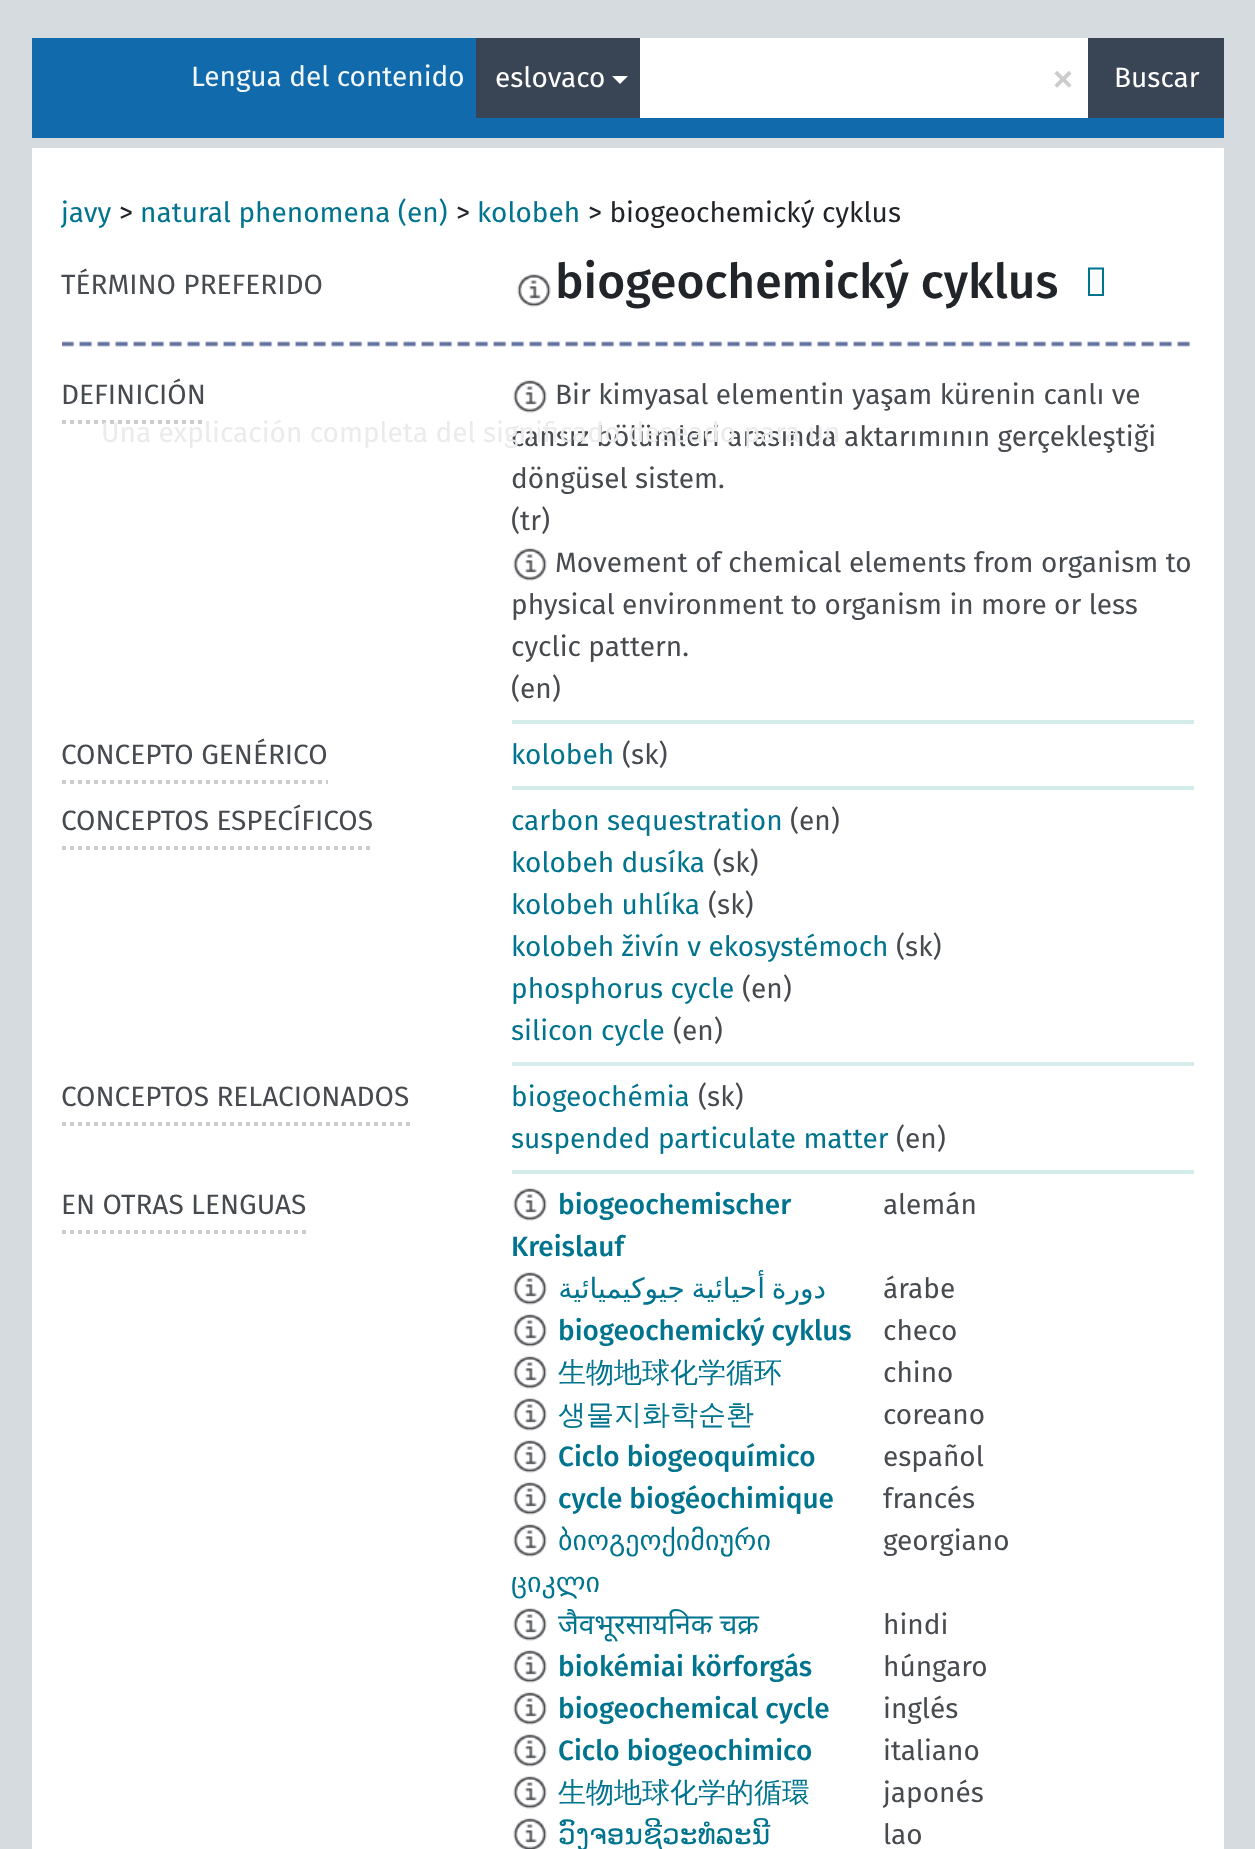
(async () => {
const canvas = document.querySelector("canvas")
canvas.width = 1255
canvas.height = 1849
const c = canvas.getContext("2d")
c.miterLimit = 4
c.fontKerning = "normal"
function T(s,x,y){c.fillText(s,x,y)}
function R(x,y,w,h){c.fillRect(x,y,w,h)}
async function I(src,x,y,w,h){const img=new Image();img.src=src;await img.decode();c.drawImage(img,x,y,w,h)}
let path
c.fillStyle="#d5dbde"
R(0,0,1255,1849)
c.fillStyle="#116aab"
R(32,38,1192,100)
c.font="28px Fira Sans"
c.fillStyle="#f3f8fb"
T("Lengua del contenido",191,86)
c.fillStyle="#394554"
R(476,38,164,80)
c.fillStyle="#fff"
T("eslovaco",495,87)
path = new Path2D("M612 76h16l-8 8z")
c.fill(path)
R(640,38,448,80)
c.font="48px Fira Sans"
c.fillStyle="#ccc"
T("×",1051,94)
c.fillStyle="#394554"
R(1088,38,136,80)
c.font="28px Fira Sans"
c.fillStyle="#fff"
T("Buscar",1114,87)
R(32,148,1192,1701)
c.fillStyle="#00748f"
T("javy",61,222)
c.fillStyle="#212529"
T(">",119,222)
c.fillStyle="#00748f"
T("natural phenomena (en)",140,222)
c.fillStyle="#212529"
T(">",456,222)
c.fillStyle="#00748f"
T("kolobeh",477,222)
c.fillStyle="#212529"
T("> biogeochemický cyklus",588,222)
c.fillStyle="#474b4f"
T("TÉRMINO PREFERIDO",61,294)
await I("1.png",517,274,34,33)
c.font="500 48px Fira Sans"
c.fillStyle="#212529"
T("biogeochemický cyklus",555,298)
c.fillStyle="#00748f"
path = new Path2D("M1088 296v-28.5h16v28.5zm2-2h12v-24.5h-12z")
c.fill(path)
await I("2.png",62,341,1129,6)
path = new Path2D("M62 422h144")
c.strokeStyle="#ccc"
c.lineWidth=4
c.setLineDash([4,4])
c.stroke(path)
c.font="28px Fira Sans"
c.fillStyle="#474b4f"
T("DEFINICIÓN",61,404)
T("cansız bölümleri arasında aktarımının gerçekleştiği",511,446)
c.fillStyle="#ebebec"
T("Una explicación completa del significado deseado para un",101,442)
c.fillStyle="#d4edeb"
R(512,720,682,4)
await I("3.png",513,380,34,33)
c.fillStyle="#474b4f"
T("Bir kimyasal elementin yaşam kürenin canlı ve",555,404)
T("döngüsel sistem.",511,488)
T("(tr)",511,530)
await I("1.png",513,548,34,33)
T("Movement of chemical elements from organism to",555,572)
T("physical environment to organism in more or less",511,614)
T("cyclic pattern.",511,656)
T("(en)",511,698)
path = new Path2D("M62 782h266")
c.stroke(path)
T("CONCEPTO GENÉRICO",61,764)
c.fillStyle="#d4edeb"
R(512,786,682,4)
c.fillStyle="#00748f"
T("kolobeh",511,764)
c.fillStyle="#474b4f"
T("(sk)",622,764)
path = new Path2D("M62 848h312")
c.stroke(path)
T("CONCEPTOS ESPECÍFICOS",61,830)
c.fillStyle="#d4edeb"
R(512,1062,682,4)
c.fillStyle="#00748f"
T("carbon sequestration",511,830)
c.fillStyle="#474b4f"
T("(en)",790,830)
c.fillStyle="#00748f"
T("kolobeh dusíka",511,872)
c.fillStyle="#474b4f"
T("(sk)",713,872)
c.fillStyle="#00748f"
T("kolobeh uhlíka",511,914)
c.fillStyle="#474b4f"
T("(sk)",708,914)
c.fillStyle="#00748f"
T("kolobeh živín v ekosystémoch",511,956)
c.fillStyle="#474b4f"
T("(sk)",896,956)
c.fillStyle="#00748f"
T("phosphorus cycle",511,998)
c.fillStyle="#474b4f"
T("(en)",742,998)
c.fillStyle="#00748f"
T("silicon cycle",511,1040)
c.fillStyle="#474b4f"
T("(en)",673,1040)
path = new Path2D("M62 1124h348")
c.stroke(path)
T("CONCEPTOS RELACIONADOS",61,1106)
c.fillStyle="#d4edeb"
R(512,1170,682,4)
c.fillStyle="#00748f"
T("biogeochémia",511,1106)
c.fillStyle="#474b4f"
T("(sk)",698,1106)
c.fillStyle="#00748f"
T("suspended particulate matter",511,1148)
c.fillStyle="#474b4f"
T("(en)",896,1148)
path = new Path2D("M62 1232h244")
c.stroke(path)
T("EN OTRAS LENGUAS",61,1214)
await I("4.png",513,1188,34,33)
c.font="500 28px Fira Sans"
c.fillStyle="#00748f"
T("biogeochemischer",558,1214)
T("Kreislauf",511,1256)
c.font="28px Fira Sans"
c.fillStyle="#474b4f"
T("alemán",883,1214)
await I("1.png",513,1272,34,33)
c.wordSpacing="-2px"
c.direction="rtl"
c.font="28px DejaVu Sans"
c.fillStyle="#00748f"
T("دورة أحيائية جيوكيميائية",826,1298)
c.wordSpacing="0px"
c.direction="ltr"
c.font="28px Fira Sans"
c.fillStyle="#474b4f"
T("árabe",883,1298)
await I("5.png",513,1314,34,33)
c.font="500 28px Fira Sans"
c.fillStyle="#00748f"
T("biogeochemický cyklus",558,1340)
c.font="28px Fira Sans"
c.fillStyle="#474b4f"
T("checo",883,1340)
await I("1.png",513,1356,34,33)
c.font="500 28px WenQuanYi Zen Hei"
c.fillStyle="#00748f"
T("生物地球化学循环",558,1382)
c.font="28px Fira Sans"
c.fillStyle="#474b4f"
T("chino",883,1382)
await I("1.png",513,1398,34,33)
c.font="500 28px WenQuanYi Zen Hei"
c.fillStyle="#00748f"
T("생물지화학순환",558,1424)
c.font="28px Fira Sans"
c.fillStyle="#474b4f"
T("coreano",883,1424)
await I("1.png",513,1440,34,33)
c.font="500 28px Fira Sans"
c.fillStyle="#00748f"
T("Ciclo biogeoquímico",558,1466)
c.font="28px Fira Sans"
c.fillStyle="#474b4f"
T("español",883,1466)
await I("1.png",513,1482,34,33)
c.font="500 28px Fira Sans"
c.fillStyle="#00748f"
T("cycle biogéochimique",558,1508)
c.font="28px Fira Sans"
c.fillStyle="#474b4f"
T("francés",883,1508)
await I("1.png",513,1524,34,33)
c.font="28px DejaVu Sans"
c.fillStyle="#00748f"
T("ბიოგეოქიმიური",558,1550)
T("ციკლი",511,1592)
c.font="28px Fira Sans"
c.fillStyle="#474b4f"
T("georgiano",883,1550)
c.font="28px Noto Sans"
c.fillStyle="#00748f"
T("जैवभूरसायनिक चक्र",558,1634)
await I("6.png",513,1608,34,33)
c.font="28px Fira Sans"
c.fillStyle="#474b4f"
T("hindi",883,1634)
await I("3.png",513,1650,34,33)
c.font="500 28px Fira Sans"
c.fillStyle="#00748f"
T("biokémiai körforgás",558,1676)
c.font="28px Fira Sans"
c.fillStyle="#474b4f"
T("húngaro",883,1676)
await I("1.png",513,1692,34,33)
c.font="500 28px Fira Sans"
c.fillStyle="#00748f"
T("biogeochemical cycle",558,1718)
c.font="28px Fira Sans"
c.fillStyle="#474b4f"
T("inglés",883,1718)
await I("1.png",513,1734,34,33)
c.font="500 28px Fira Sans"
c.fillStyle="#00748f"
T("Ciclo biogeochimico",558,1760)
c.font="28px Fira Sans"
c.fillStyle="#474b4f"
T("italiano",883,1760)
await I("1.png",513,1776,34,33)
c.font="500 28px WenQuanYi Zen Hei"
c.fillStyle="#00748f"
T("生物地球化学的循環",558,1802)
c.font="28px Fira Sans"
c.fillStyle="#474b4f"
T("japonés",883,1802)
c.font="28px DejaVu Sans"
c.fillStyle="#00748f"
T("ວົງຈອນຊີວະທໍລະນີ",558,1844)
await I("7.png",513,1818,34,31)
c.font="28px Fira Sans"
c.fillStyle="#474b4f"
T("lao",883,1844)
})()
